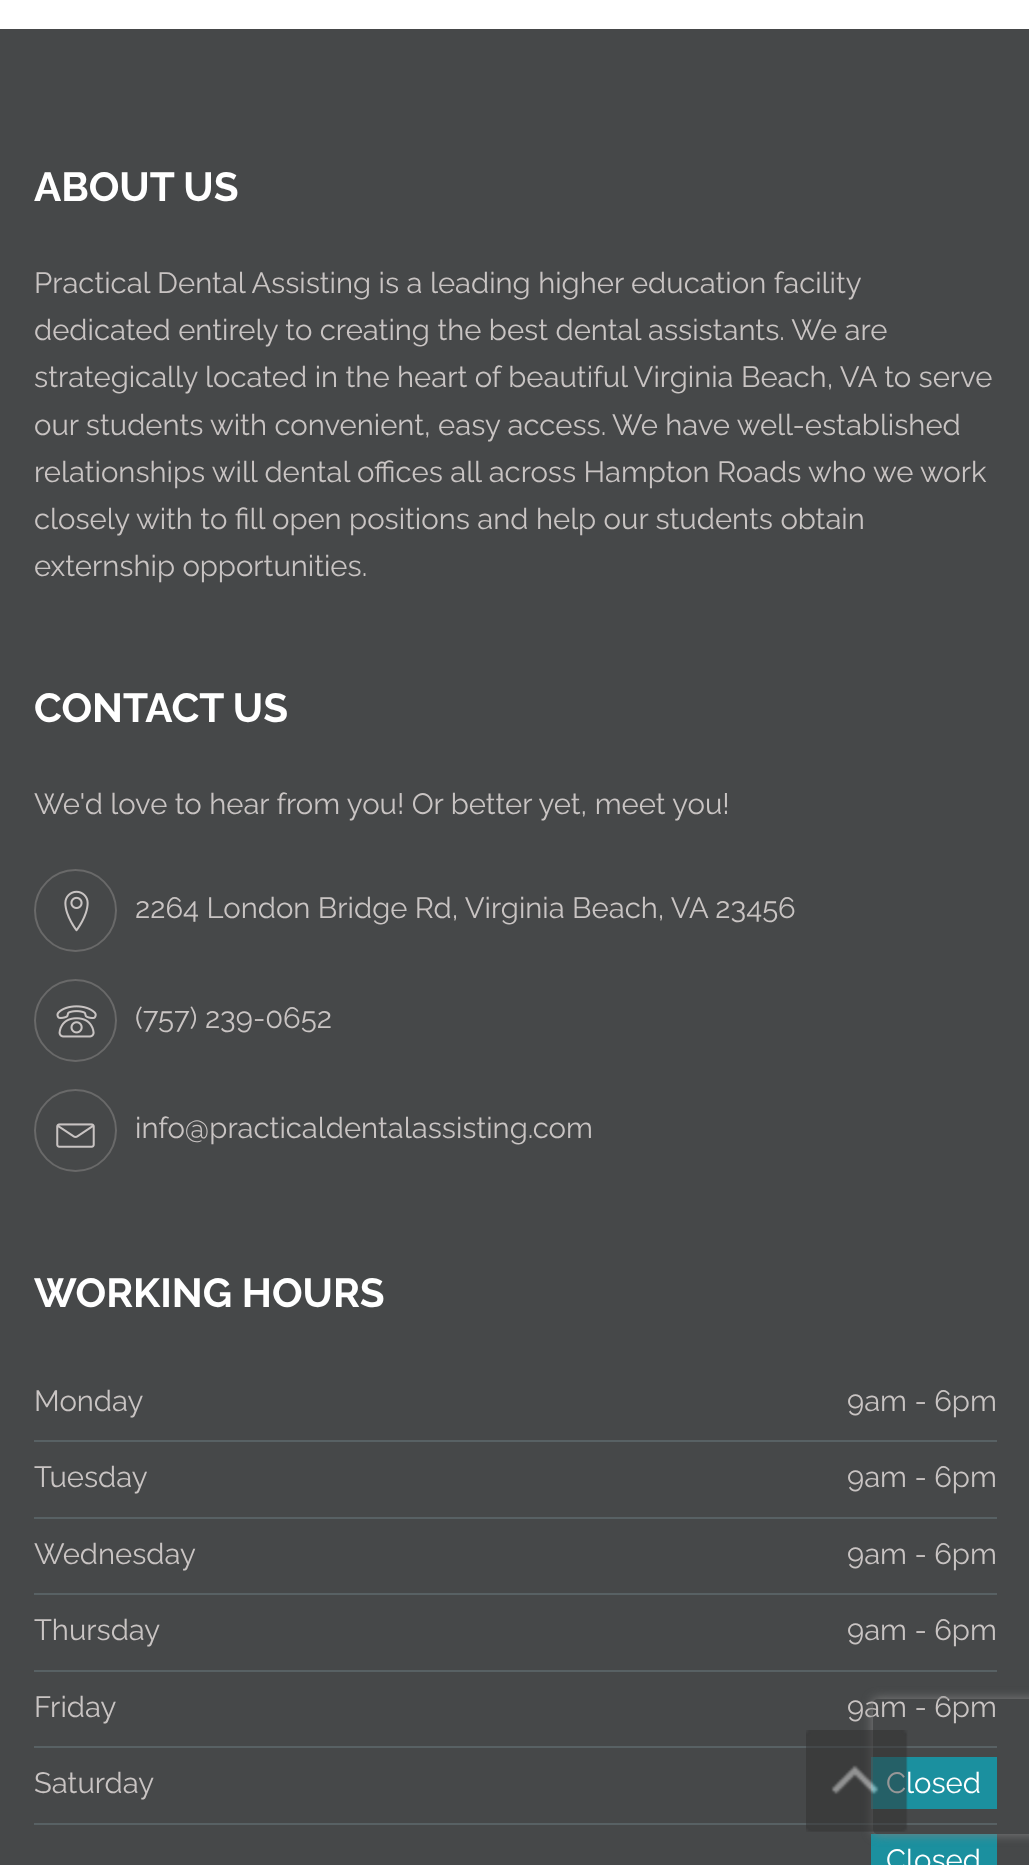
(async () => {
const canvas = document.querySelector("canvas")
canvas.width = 1029
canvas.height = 1865
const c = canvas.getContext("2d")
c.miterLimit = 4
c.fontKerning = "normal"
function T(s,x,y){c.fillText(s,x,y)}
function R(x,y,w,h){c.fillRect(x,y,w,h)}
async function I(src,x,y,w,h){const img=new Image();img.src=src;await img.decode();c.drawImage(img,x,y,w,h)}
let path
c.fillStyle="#fff"
R(0,0,1029,1865)
c.fillStyle="#464849"
R(0,29,1029,1836)
c.font="bold 40.5px Raleway"
c.fillStyle="#fff"
T("ABOUT US",34,201)
c.font="29.25px Raleway"
c.fillStyle="#c9c4c3"
T("Practical Dental Assisting is a leading higher education facility",34,293)
T("dedicated entirely to creating the best dental assistants. We are",34,340)
T("strategically located in the heart of beautiful Virginia Beach, VA to serve",34,387)
T("our students with convenient, easy access.",34,435)
T("We have well-established",612,435)
T("relationships will dental offices all across Hampton Roads who we work",34,482)
T("closely with to fill open positions and help our students obtain",34,529)
T("externship opportunities.",34,576)
c.font="bold 40.5px Raleway"
c.fillStyle="#fff"
T("CONTACT US",34,722)
c.font="29.25px Raleway"
c.fillStyle="#c9c4c3"
T("We'd love to hear from you! Or better yet, meet you!",34,814)
c.beginPath()
c.arc(75.5,910.5,40.5,0,7)
c.strokeStyle="#696969"
c.lineWidth=2
c.stroke()
await I("1.png",64,890,25,42)
T("2264 London Bridge Rd, Virginia Beach, VA 23456",135,918)
c.beginPath()
c.arc(75.5,1020.5,40.5,0,7)
c.stroke()
await I("2.png",56,1005,41,33)
T("(757) 239-0652",135,1028)
c.beginPath()
c.arc(75.5,1130.5,40.5,0,7)
c.stroke()
await I("3.png",56,1123,39,25)
T("info@practicaldentalassisting.com",135,1138)
c.font="bold 40.5px Raleway"
c.fillStyle="#fff"
T("WORKING HOURS",34,1307)
c.font="29.25px Raleway"
c.fillStyle="#c9c4c3"
T("Monday",34,1411)
T("9am - 6pm",847,1411)
c.fillStyle="#586164"
R(34,1440,963,2)
c.fillStyle="#c9c4c3"
T("Tuesday",34,1487)
T("9am - 6pm",847,1487)
c.fillStyle="#586164"
R(34,1517,963,2)
c.fillStyle="#c9c4c3"
T("Wednesday",34,1564)
T("9am - 6pm",847,1564)
c.fillStyle="#586164"
R(34,1593,963,2)
c.fillStyle="#c9c4c3"
T("Thursday",34,1640)
T("9am - 6pm",847,1640)
c.fillStyle="#586164"
R(34,1670,963,2)
c.fillStyle="#c9c4c3"
T("Friday",34,1717)
T("9am - 6pm",847,1717)
c.fillStyle="#586164"
R(34,1746,963,2)
c.fillStyle="#c9c4c3"
T("Saturday",34,1793)
c.fillStyle="#1b909f"
R(871,1757,126,52)
c.fillStyle="#fff"
T("Closed",886,1793)
c.fillStyle="#586164"
R(34,1823,963,2)
c.fillStyle="#1b909f"
R(871,1834,126,31)
c.fillStyle="#fff"
T("Closed",886,1870)
c.save()
path = new Path2D("M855 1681h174v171h-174zm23 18h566c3 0 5 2 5 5v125c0 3-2 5-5 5h-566c-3 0-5-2-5-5v-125c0-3 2-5 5-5z")
c.clip(path,"evenodd")
c.fillStyle="#808080"
c.filter="blur(5.5px)"
c.beginPath()
c.roundRect(873,1699,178,135,5)
c.fill()
c.filter="none"
c.restore()
await I("4.png",806,1730,102,102)
})()
